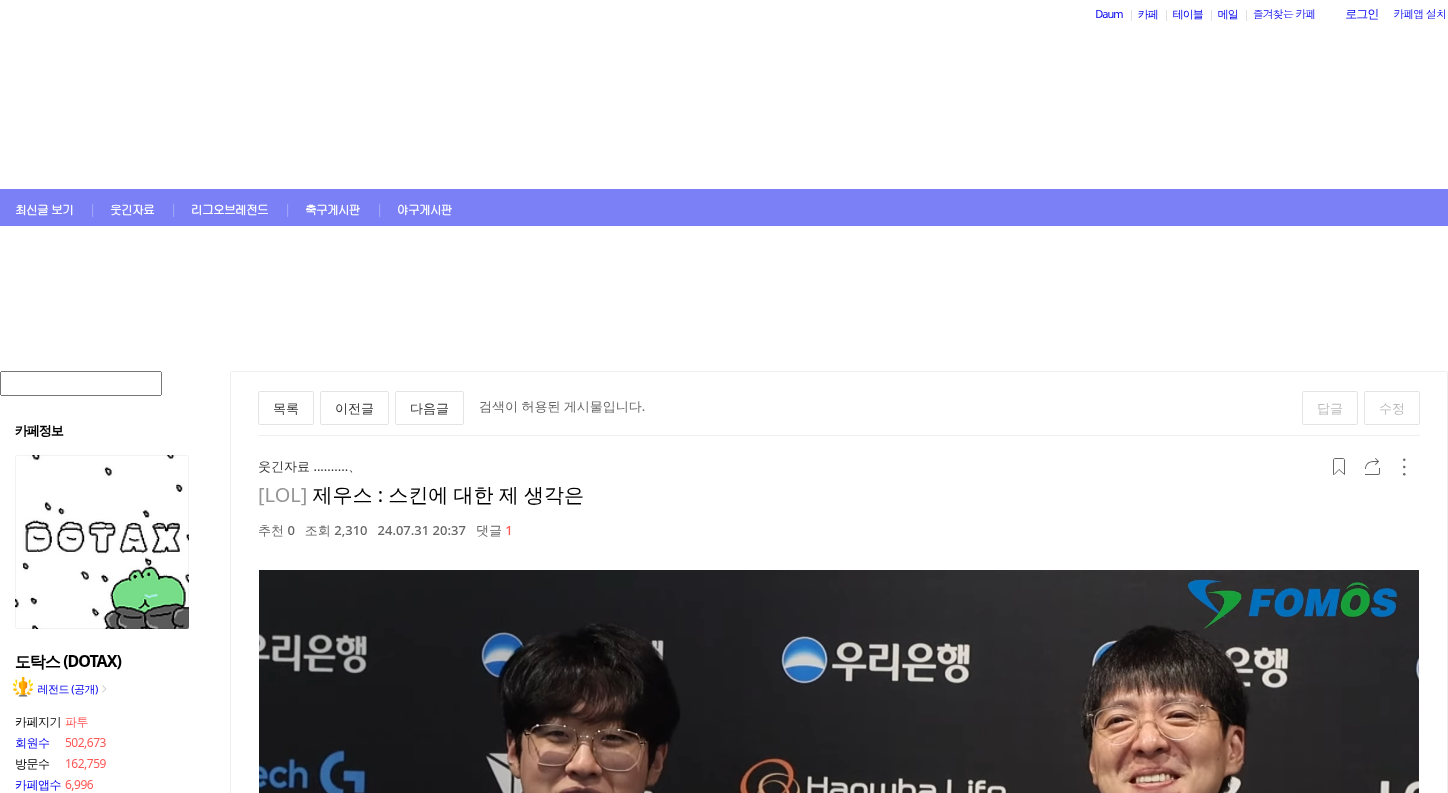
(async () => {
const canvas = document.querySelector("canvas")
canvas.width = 1448
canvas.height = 793
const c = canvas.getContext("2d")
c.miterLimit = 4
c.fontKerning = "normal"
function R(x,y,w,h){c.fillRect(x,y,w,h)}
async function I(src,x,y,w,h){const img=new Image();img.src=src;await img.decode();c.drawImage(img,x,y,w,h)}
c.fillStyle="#fff"
R(0,0,1448,793)
await I("1.png",0,9,1448,784)
})()
